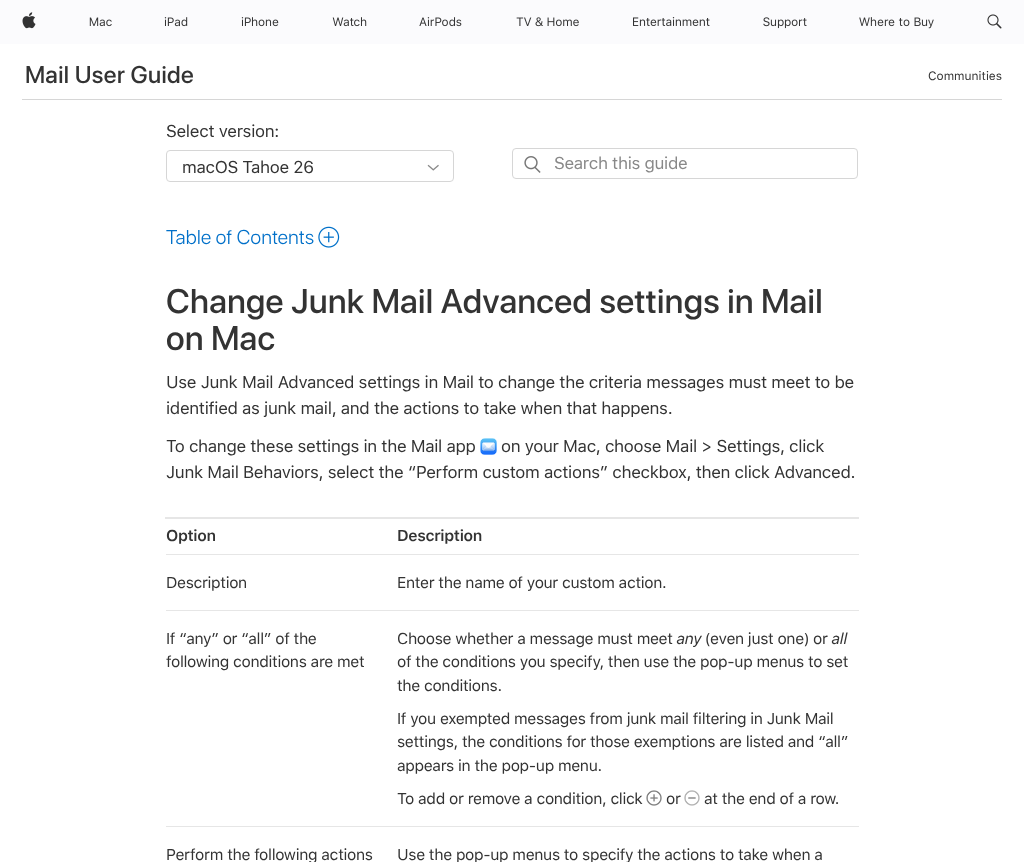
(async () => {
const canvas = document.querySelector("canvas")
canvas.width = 1024
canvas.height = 862
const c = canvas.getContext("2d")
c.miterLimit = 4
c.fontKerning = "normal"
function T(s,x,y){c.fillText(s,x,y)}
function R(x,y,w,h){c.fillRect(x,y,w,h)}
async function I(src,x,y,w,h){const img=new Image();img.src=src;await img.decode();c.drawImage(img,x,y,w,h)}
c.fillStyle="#fff"
R(0,0,1024,862)
c.fillStyle="#fbfbfd"
R(0,0,1024,44)
await I("1.png",22,12,14,17)
await I("2.png",89,17,23,10)
await I("3.png",164,17,24,10)
await I("4.png",241,17,38,10)
await I("5.png",332,17,35,10)
await I("6.png",419,17,43,10)
await I("7.png",516,17,63,10)
await I("8.png",633,17,77,9)
await I("9.png",763,17,44,12)
await I("10.png",859,17,75,12)
await I("11.png",987,14,15,15)
c.letterSpacing="0.4px"
c.font="500 24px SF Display"
c.fillStyle="#333"
T("Mail User Guide",25,83)
c.letterSpacing="0px"
c.font="12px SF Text"
T("Communities",928,80)
c.fillStyle="#d6d6d6"
R(22,99,980,1)
c.letterSpacing="-0.35px"
c.font="17px SF Text"
c.fillStyle="#333"
T("Select version:",166,137)
c.beginPath()
c.roundRect(166.5,150.5,287,31,3.5)
c.strokeStyle="#d6d6d6"
c.stroke()
T("macOS Tahoe 26",182,173)
await I("12.png",427,164,12,7)
c.beginPath()
c.roundRect(512.5,148.5,345,30,3.5)
c.stroke()
await I("13.png",524,156,17,17)
c.fillStyle="#888"
T("Search this guide",554,169)
c.letterSpacing="0.35px"
c.font="300 20px SF Display"
c.fillStyle="#0070c9"
T("Table of Contents",166,244)
await I("14.png",318,226,22,22)
c.font="500 34px SF Display"
c.fillStyle="#333"
T("Change Junk Mail Advanced settings in Mail",166,313)
T("on Mac",166,350)
c.letterSpacing="-0.35px"
c.font="17px SF Text"
T("Use Junk Mail Advanced settings in Mail to change the criteria messages must meet to be",166,388)
T("identified as junk mail, and the actions to take when that happens.",166,414)
T("To change these settings in the Mail app",166,452)
await I("15.png",480,438,17,17)
T("on your Mac, choose Mail > Settings, click",501,452)
T("Junk Mail Behaviors, select the “Perform custom actions” checkbox, then click Advanced.",166,478)
c.fillStyle="#e6e6e6"
R(166,554,693,1)
R(165,517,694,2)
c.font="600 15.7px SF Text"
c.fillStyle="#333"
T("Option",166,541)
T("Description",397,541)
c.fillStyle="#e6e6e6"
R(166,610,693,1)
c.font="15.7px SF Text"
c.fillStyle="#333"
T("Description",166,588)
T("Enter the name of your custom action.",397,588)
c.fillStyle="#e6e6e6"
R(166,826,693,1)
c.fillStyle="#333"
T("If “any” or “all” of the",166,644)
T("following conditions are met",166,667)
T("Choose whether a message must meet",397,644)
c.font="italic 15.7px SF Text"
T("any",676,644)
c.font="15.7px SF Text"
T("(even just one) or",705,644)
c.font="italic 15.7px SF Text"
T("all",831,644)
c.font="15.7px SF Text"
T("of the conditions you specify, then use the pop-up menus to set",397,667)
T("the conditions.",397,691)
T("If you exempted messages from junk mail filtering in Junk Mail",397,724)
T("settings, the conditions for those exemptions are listed and “all”",397,747)
T("appears in the pop-up menu.",397,771)
T("To add or remove a condition, click",397,804)
await I("16.png",646,790,16,16)
T("or",666,804)
await I("17.png",684,790,16,16)
T("at the end of a row.",704,804)
T("Perform the following actions",166,860)
T("Use the pop-up menus to specify the actions to take when a",397,860)
})()
